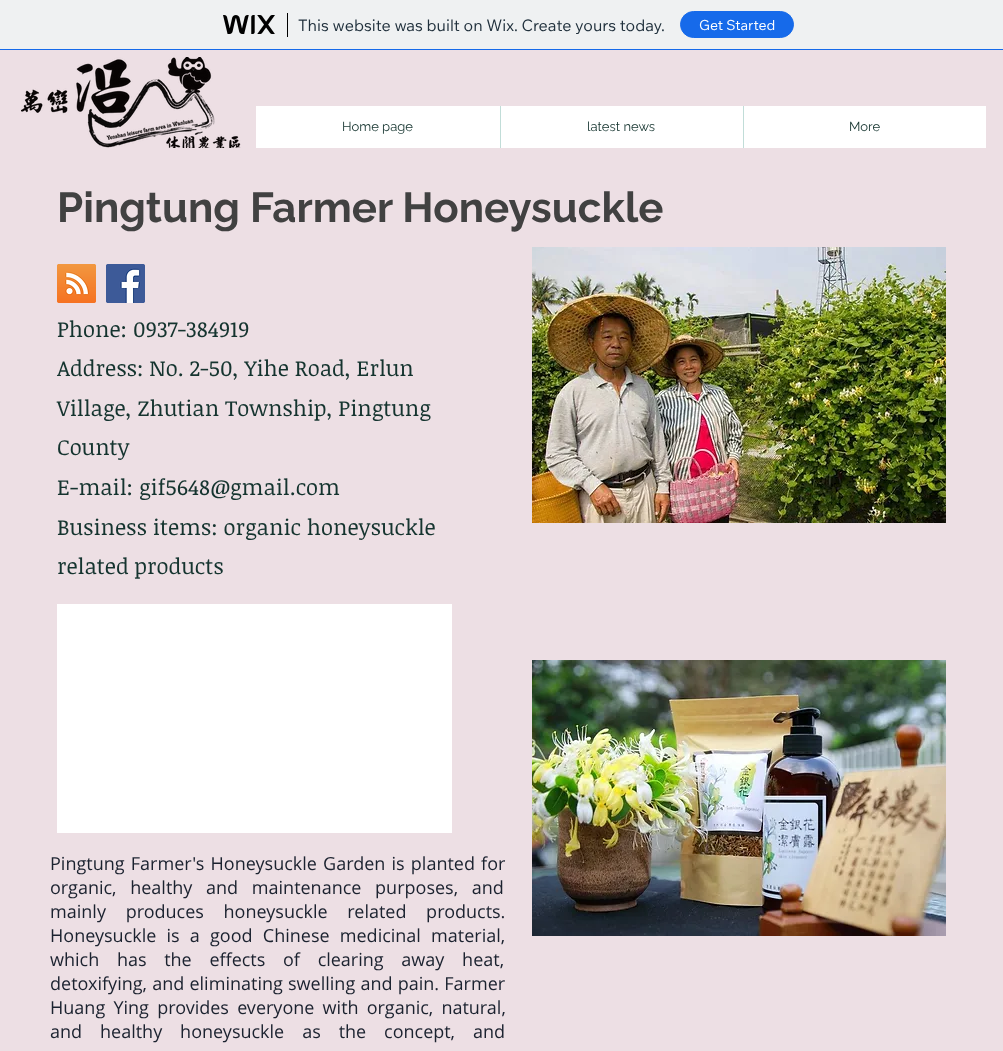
(async () => {
const canvas = document.querySelector("canvas")
canvas.width = 1003
canvas.height = 1051
const c = canvas.getContext("2d")
c.miterLimit = 4
c.fontKerning = "normal"
function T(s,x,y){c.fillText(s,x,y)}
function R(x,y,w,h){c.fillRect(x,y,w,h)}
async function I(src,x,y,w,h){const img=new Image();img.src=src;await img.decode();c.drawImage(img,x,y,w,h)}
c.fillStyle="#eddfe4"
R(0,0,1003,1051)
c.fillStyle="#eff1f2"
R(0,0,1003,49)
c.fillStyle="#166aea"
R(0,49,1003,1)
c.fillStyle="#000"
R(287,13,1,24)
await I("1.png",223,15,52,19)
c.font="16px Wix Madefor Text"
c.fillStyle="#20303c"
T("This website was built on Wix. Create yours today.",298,31)
c.fillStyle="#166aea"
c.beginPath()
c.roundRect(680.5,11.5,113,26,13)
c.fill()
c.strokeStyle="#166aea"
c.stroke()
c.font="14px Wix Madefor Text"
c.fillStyle="#fff"
T("Get Started",699,30)
await I("2.png",21,57,220,91)
R(256,106,730,42)
c.font="13px Raleway"
c.fillStyle="#15342f"
T("Home page",342,131)
c.fillStyle="#c1ddd8"
R(500,106,1,42)
c.fillStyle="#15342f"
T("latest news",587,131)
c.fillStyle="#c1ddd8"
R(743,106,1,42)
c.fillStyle="#15342f"
T("More",849,131)
c.font="bold 42px Raleway"
c.fillStyle="#414141"
T("Pingtung Farmer Honeysuckle",57,222)
await I("3.png",57,264,39,39)
await I("4.png",106,264,39,39)
await I("5.png",532,247,414,276)
c.font="22px Noticia Text"
c.fillStyle="#15342f"
T("Phone: 0937-384919",57,337)
T("Address: No. 2-50, Yihe Road, Erlun",57,376)
T("Village, Zhutian Township, Pingtung",57,416)
T("County",57,455)
T("E-mail: gif5648@gmail.com",57,495)
T("Business items: organic honeysuckle",57,535)
T("related products",57,574)
c.fillStyle="#fff"
R(57,604,395,229)
await I("6.png",532,660,414,276)
c.wordSpacing="1.5px"
c.font="18px Open Sans"
c.fillStyle="#1b222f"
T("Pingtung Farmer's Honeysuckle Garden is planted for",50,870)
c.wordSpacing="9px"
T("organic, healthy and maintenance purposes, and",50,894)
c.wordSpacing="15px"
T("mainly produces honeysuckle related products.",50,918)
c.wordSpacing="5.5px"
T("Honeysuckle is a good Chinese medicinal material,",50,942)
c.wordSpacing="13px"
T("which has the effects of clearing away heat,",50,966)
c.wordSpacing="0.5px"
T("detoxifying, and eliminating swelling and pain. Farmer",50,990)
c.wordSpacing="3.5px"
T("Huang Ying provides everyone with organic, natural,",50,1014)
c.wordSpacing="13.25px"
T("and healthy honeysuckle as the concept, and",50,1038)
})()
